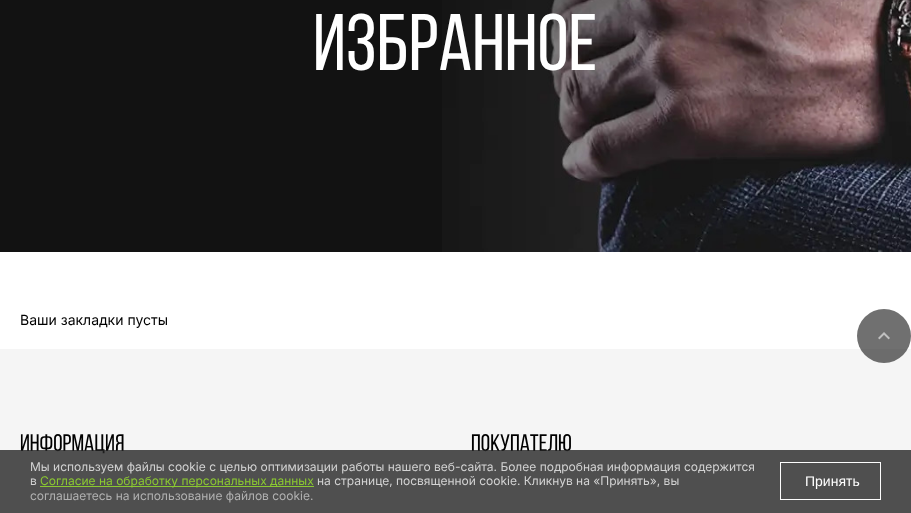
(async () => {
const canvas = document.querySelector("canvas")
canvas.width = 911
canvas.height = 513
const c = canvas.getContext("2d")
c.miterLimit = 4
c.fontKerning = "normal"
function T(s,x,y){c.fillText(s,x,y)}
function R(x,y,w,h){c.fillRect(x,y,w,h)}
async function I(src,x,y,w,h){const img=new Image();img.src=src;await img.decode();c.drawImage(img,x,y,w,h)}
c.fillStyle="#fff"
R(0,0,911,513)
c.fillStyle="#121212"
R(0,0,442,252)
await I("1.png",442,0,469,252)
c.font="80px Bebas Neue"
c.fillStyle="#fff"
T("ИЗБРАННОЕ",313,70)
c.font="14px Inter"
c.fillStyle="#000"
T("Ваши закладки пусты",20,325)
c.fillStyle="#f5f5f5"
R(0,349,911,164)
c.fillStyle="#0000008f"
c.beginPath()
c.arc(884,336,27,0,7)
c.fill()
await I("2.png",878,332,12,8)
c.font="24px Bebas Neue"
c.fillStyle="#000"
T("ИНФОРМАЦИЯ",20,451)
T("ПОКУПАТЕЛЮ",471,451)
c.fillStyle="#262626cc"
R(0,450,911,63)
c.font="12px Inter"
c.fillStyle="#d3d3d3"
T("Мы используем файлы cookie с целью оптимизации работы нашего веб-сайта. Более подробная информация содержится",30,471)
T("в",30,485)
c.fillStyle="#8bc931"
R(40,486,274,1)
T("Согласие на обработку персональных данных",40,485)
c.fillStyle="#d3d3d3"
T("на странице, посвященной cookie. Кликнув на «Принять», вы",317,485)
c.fillStyle="#b1b1b1"
T("соглашаетесь на использование файлов cookie.",30,500)
c.strokeStyle="#fdfdfd"
c.strokeRect(780.5,462.5,100,37)
c.font="14px Liberation Sans"
c.fillStyle="#fff"
T("Принять",805,486)
})()
